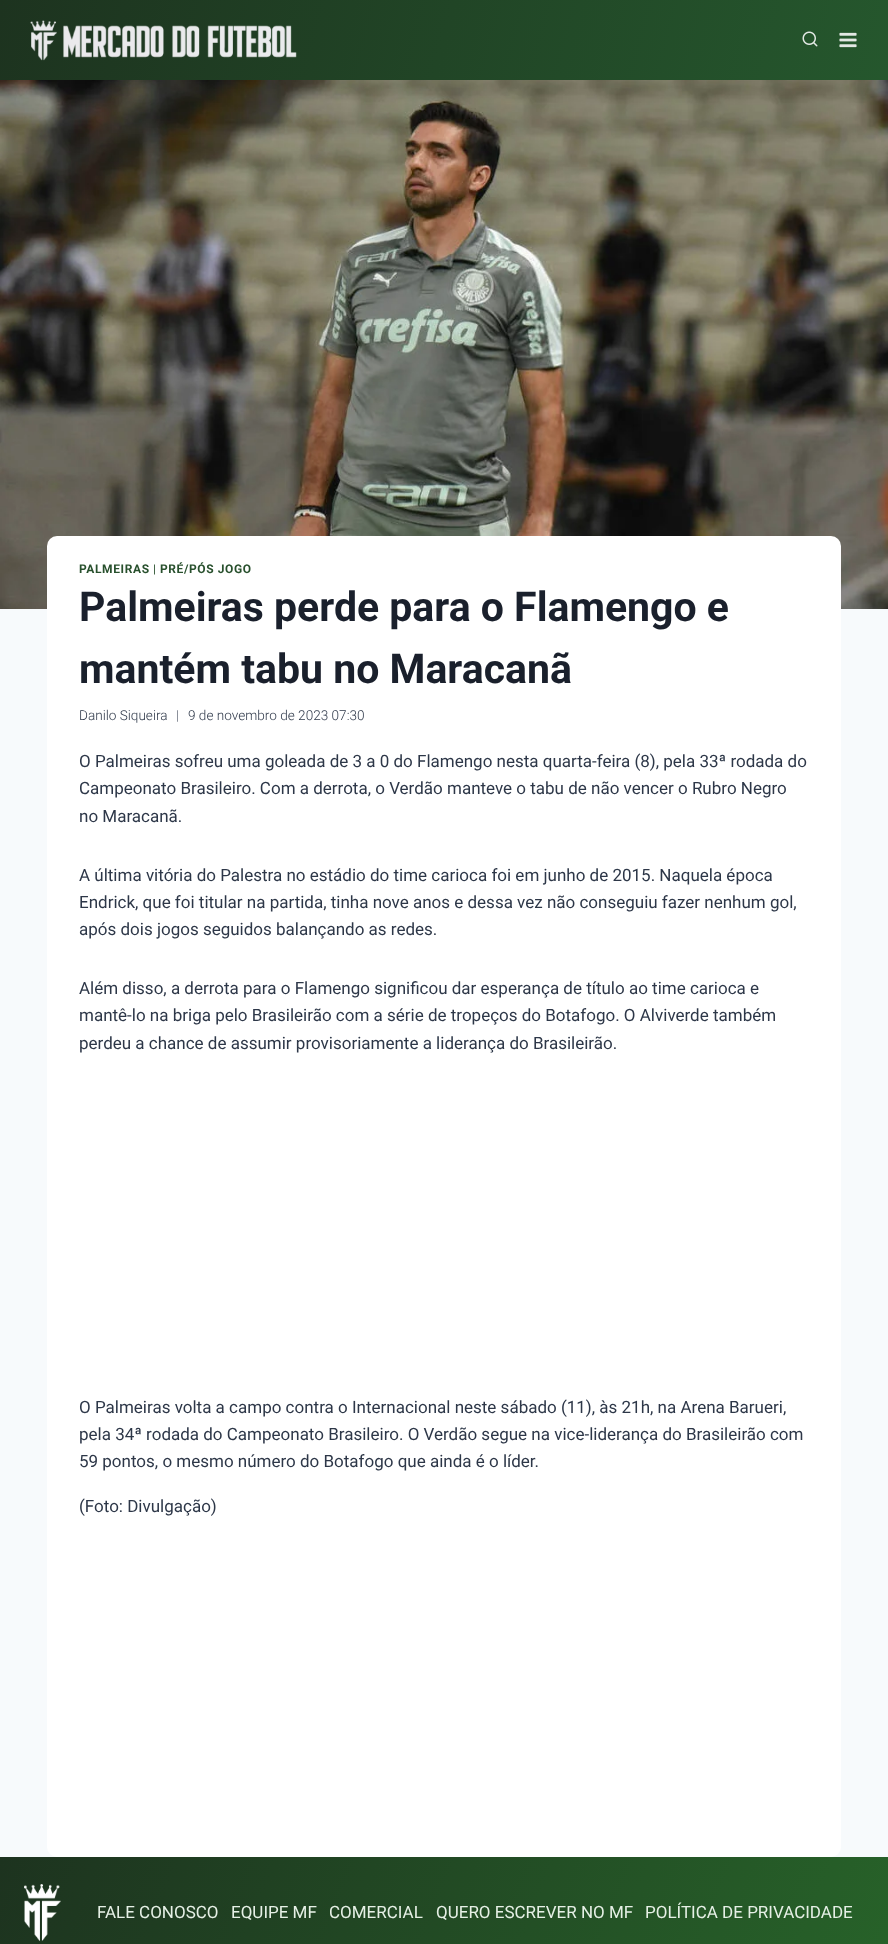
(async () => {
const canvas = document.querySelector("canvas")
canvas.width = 888
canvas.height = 1944
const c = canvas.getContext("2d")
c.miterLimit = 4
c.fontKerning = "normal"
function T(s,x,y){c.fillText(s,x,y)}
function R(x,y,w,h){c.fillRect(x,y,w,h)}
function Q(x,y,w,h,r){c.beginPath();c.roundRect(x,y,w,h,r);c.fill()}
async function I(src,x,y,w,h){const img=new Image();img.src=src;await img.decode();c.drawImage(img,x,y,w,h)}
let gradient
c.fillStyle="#f7fafc"
R(0,0,888,1944)
gradient = c.createLinearGradient(868,154,20,-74)
gradient.addColorStop(0,"#25572d")
gradient.addColorStop(1,"#1d331f")
c.fillStyle = gradient
R(0,0,888,80)
await I("1.png",30,20,267,41)
await I("2.png",802,31,16,16)
await I("3.png",839,32,18,16)
await I("4.png",0,80,888,529)
c.fillStyle="#fff"
Q(47,536,794,1321,10)
c.letterSpacing="0.6px"
c.font="bold 12px Roboto"
c.fillStyle="#28502d"
T("PALMEIRAS",79,573)
c.font="12px Roboto"
T("|",153,573)
c.font="bold 12px Roboto"
T("PRÉ/PÓS JOGO",160,573)
c.letterSpacing="0px"
c.font="bold 41px Roboto"
c.fillStyle="#1a202c"
T("Palmeiras perde para o Flamengo e",79,621)
T("mantém tabu no Maracanã",79,683)
c.font="300 13.6px Roboto"
c.fillStyle="#2d3748"
T("Danilo Siqueira",79,720)
c.fillStyle="#575f6d"
T("|",176,720)
c.fillStyle="#2d3748"
T("9 de novembro de 2023 07:30",188,720)
c.font="17px Roboto"
T("O Palmeiras sofreu uma goleada de 3 a 0 do Flamengo nesta quarta-feira (8), pela 33ª rodada do",79,767)
T("Campeonato Brasileiro. Com a derrota, o Verdão manteve o tabu de não vencer o Rubro Negro",79,794)
T("no Maracanã.",79,822)
T("A última vitória do Palestra no estádio do time carioca foi em junho de 2015. Naquela época",79,881)
T("Endrick, que foi titular na partida, tinha nove anos e dessa vez não conseguiu fazer nenhum gol,",79,908)
T("após dois jogos seguidos balançando as redes.",79,935)
T("Além disso, a derrota para o Flamengo significou dar esperança de título ao time carioca e",79,994)
T("mantê-lo na briga pelo Brasileirão com a série de tropeços do Botafogo. O Alviverde também",79,1021)
T("perdeu a chance de assumir provisoriamente a liderança do Brasileirão.",79,1049)
T("O Palmeiras volta a campo contra o Internacional neste sábado (11), às 21h, na Arena Barueri,",79,1413)
T("pela 34ª rodada do Campeonato Brasileiro. O Verdão segue na vice-liderança do Brasileirão com",79,1440)
T("59 pontos, o mesmo número do Botafogo que ainda é o líder.",79,1467)
T("(Foto: Divulgação)",79,1512)
gradient = c.createLinearGradient(845,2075,43,1750)
gradient.addColorStop(0,"#276229")
gradient.addColorStop(1,"#1d331f")
c.fillStyle = gradient
R(0,1857,888,87)
await I("5.png",24,1884,37,57)
c.fillStyle="#e6f0e6"
T("FALE CONOSCO",97,1918)
T("EQUIPE MF",231,1918)
T("COMERCIAL",329,1918)
T("QUERO ESCREVER NO MF",436,1918)
T("POLÍTICA DE PRIVACIDADE",645,1918)
})()
